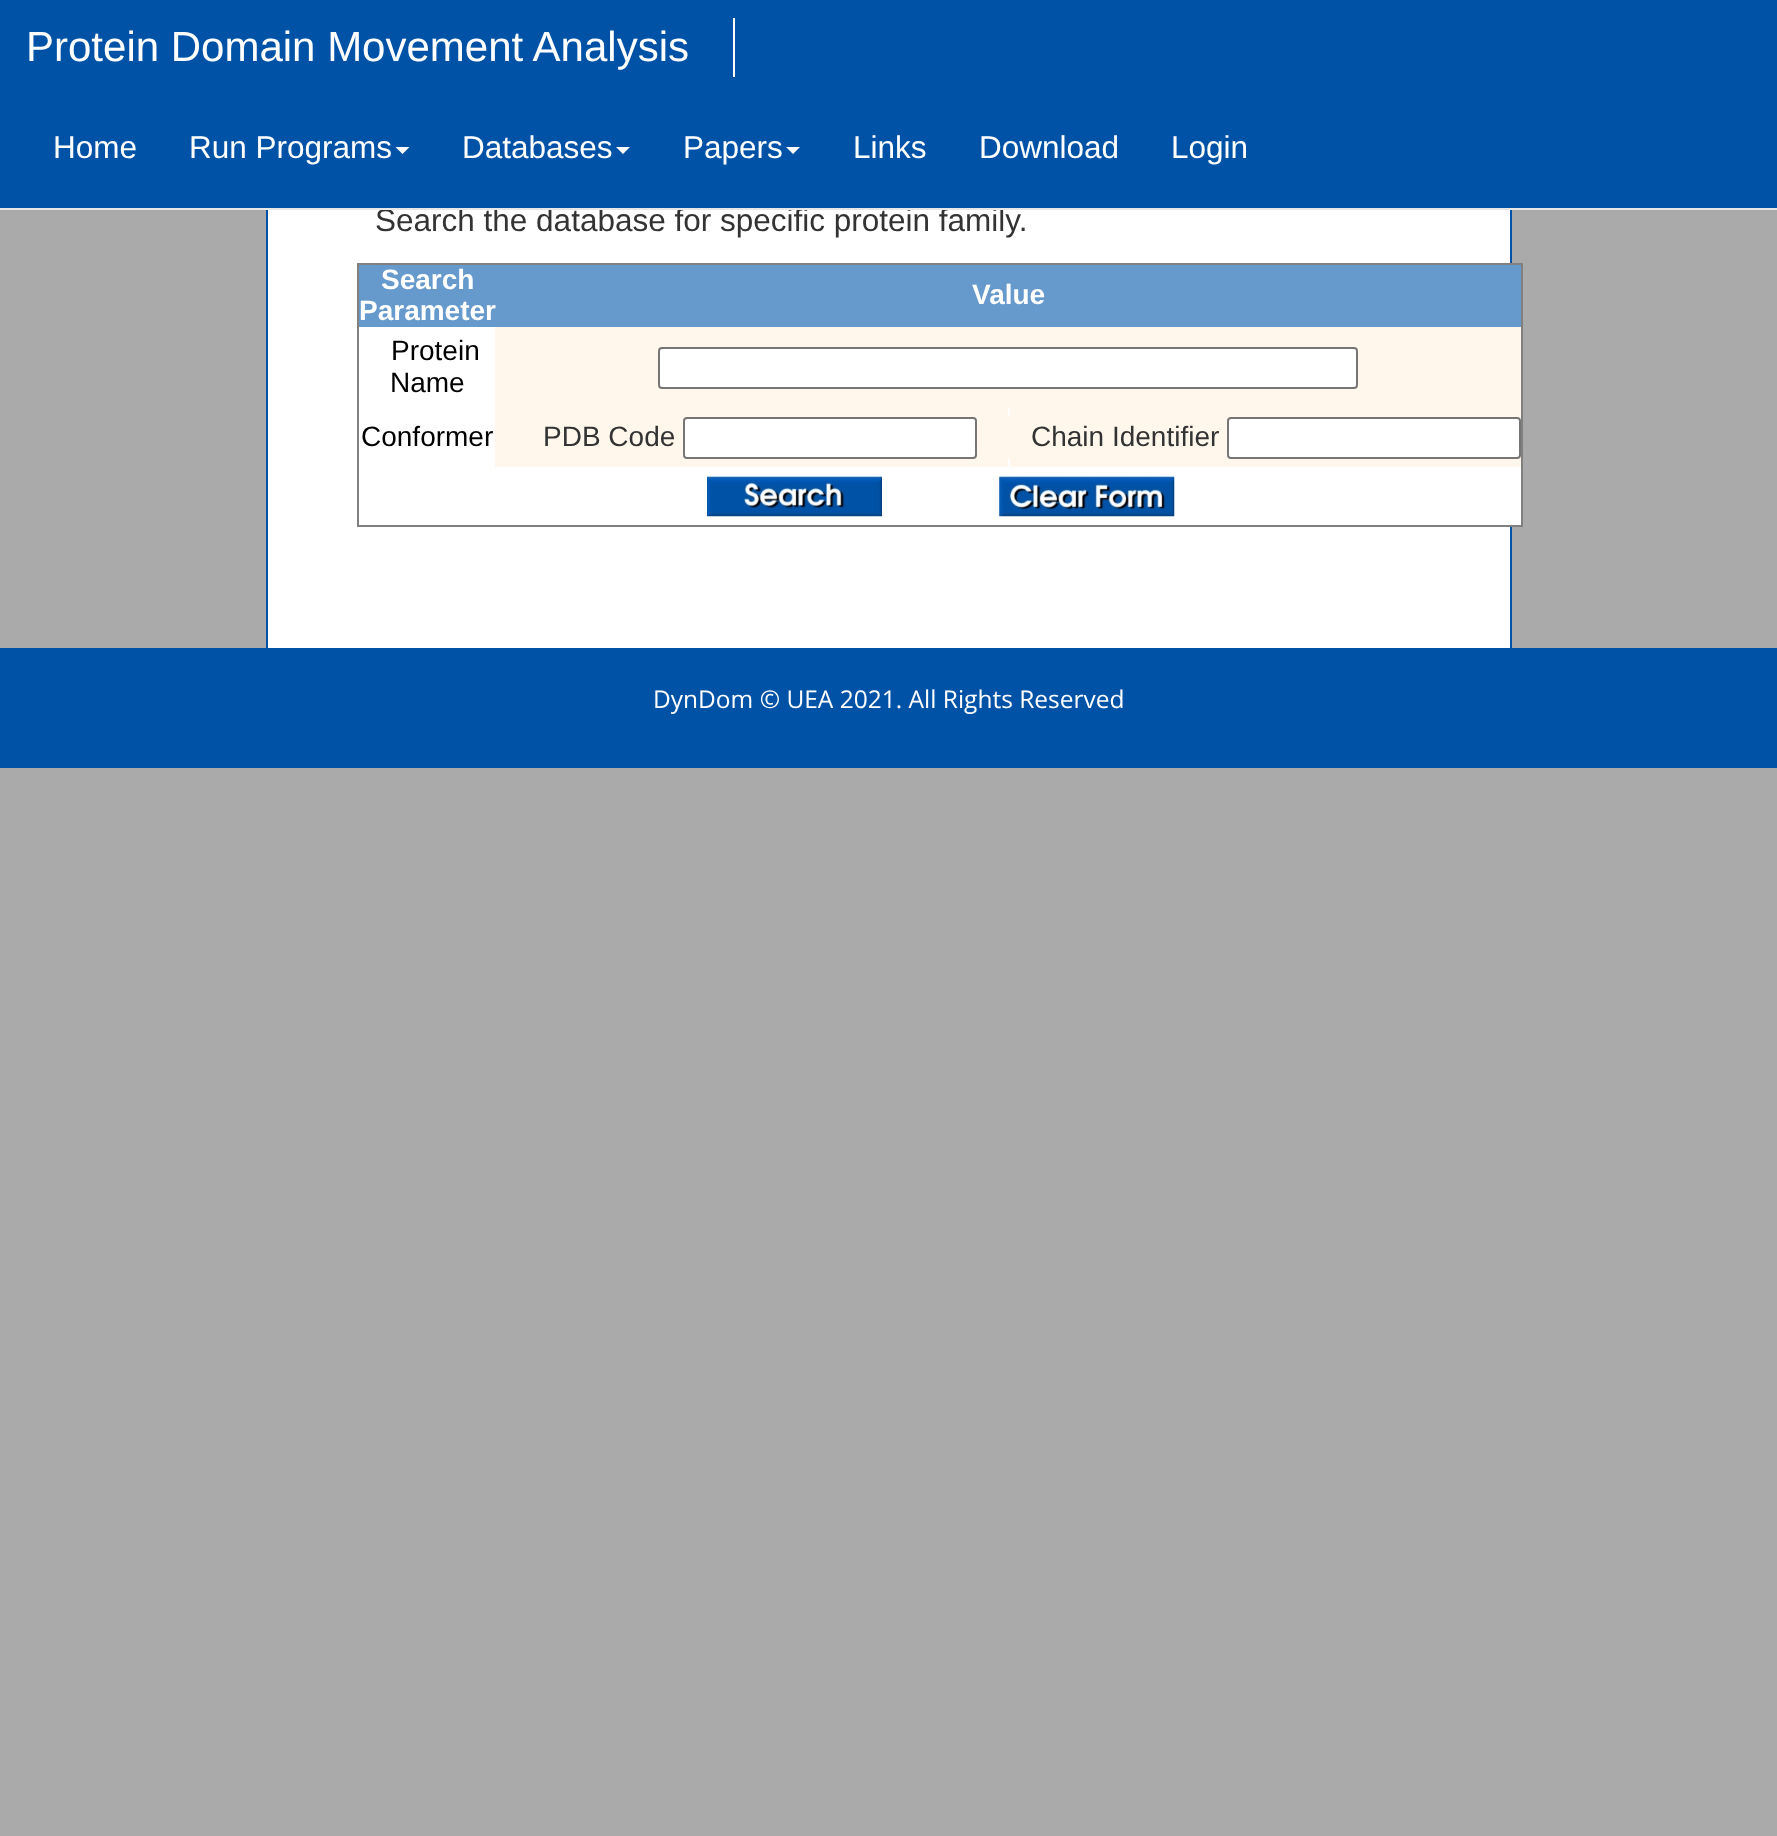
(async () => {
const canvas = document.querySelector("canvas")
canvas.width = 1777
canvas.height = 1836
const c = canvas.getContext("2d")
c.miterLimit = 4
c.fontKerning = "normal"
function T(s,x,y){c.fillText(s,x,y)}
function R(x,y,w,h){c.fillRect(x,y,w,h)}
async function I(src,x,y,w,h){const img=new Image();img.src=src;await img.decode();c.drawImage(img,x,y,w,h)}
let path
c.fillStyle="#aaa"
R(0,0,1777,1836)
c.fillStyle="#0052a6"
R(0,0,1777,208)
c.fillStyle="#fff"
R(268,210,1242,438)
c.font="31.5px Liberation Sans"
c.fillStyle="#333"
T("Search the database for specific protein family.",375,231)
c.fillStyle="#e7e7e7"
R(0,208,1777,2)
c.fillStyle="#fff"
R(733,18,2,59)
c.font="42px Liberation Sans"
T("Protein Domain Movement Analysis",26,61)
c.font="31.5px Liberation Sans"
T("Home",53,158)
T("Run Programs",189,158)
path = new Path2D("M395.5 147h14l-7 7z")
c.fill(path)
T("Databases",462,158)
path = new Path2D("M616 147h14l-7 7z")
c.fill(path)
T("Papers",683,158)
path = new Path2D("M786 147h14l-7 7z")
c.fill(path)
T("Links",853,158)
T("Download",979,158)
T("Login",1171,158)
c.fillStyle="#0052a6"
R(1510,210,2,438)
R(266,210,2,438)
c.fillStyle="#808080"
R(357,263,1166,2)
R(1521,263,2,264)
R(357,525,1166,2)
R(357,263,2,264)
c.fillStyle="#69c"
R(359,265,1162,62)
c.font="bold 28px Liberation Sans"
c.fillStyle="#fff"
T("Search",381,289)
T("Parameter",359,320)
T("Value",972,304)
c.font="28px Liberation Sans"
c.fillStyle="#000"
T("Protein",391,360)
T("Name",390,392)
c.fillStyle="#fff6ec"
R(495,327,1026,140)
c.fillStyle="#fff"
c.beginPath()
c.roundRect(659,348,698,40,3)
c.fill()
c.strokeStyle="#767676"
c.lineWidth=2
c.stroke()
c.fillStyle="#000"
T("Conformer",361,446)
await I("1.png",1008,407,2,10)
c.fillStyle="#333"
T("PDB Code",543,446)
c.fillStyle="#fff"
c.beginPath()
c.roundRect(684,418,292,40,3)
c.fill()
c.stroke()
c.fillStyle="#333"
T("Chain Identifier",1031,446)
c.fillStyle="#fff"
c.beginPath()
c.roundRect(1228,418,292,40,3)
c.fill()
c.stroke()
await I("2.png",1008,458,2,9)
R(1510,467,11,58)
await I("3.png",707,476,175,41)
await I("4.png",999,476,176,41)
c.fillStyle="#0052a6"
R(0,648,1777,120)
c.font="24.5px Open Sans"
c.fillStyle="#fff"
T("DynDom © UEA 2021. All Rights Reserved",653,708)
})()
